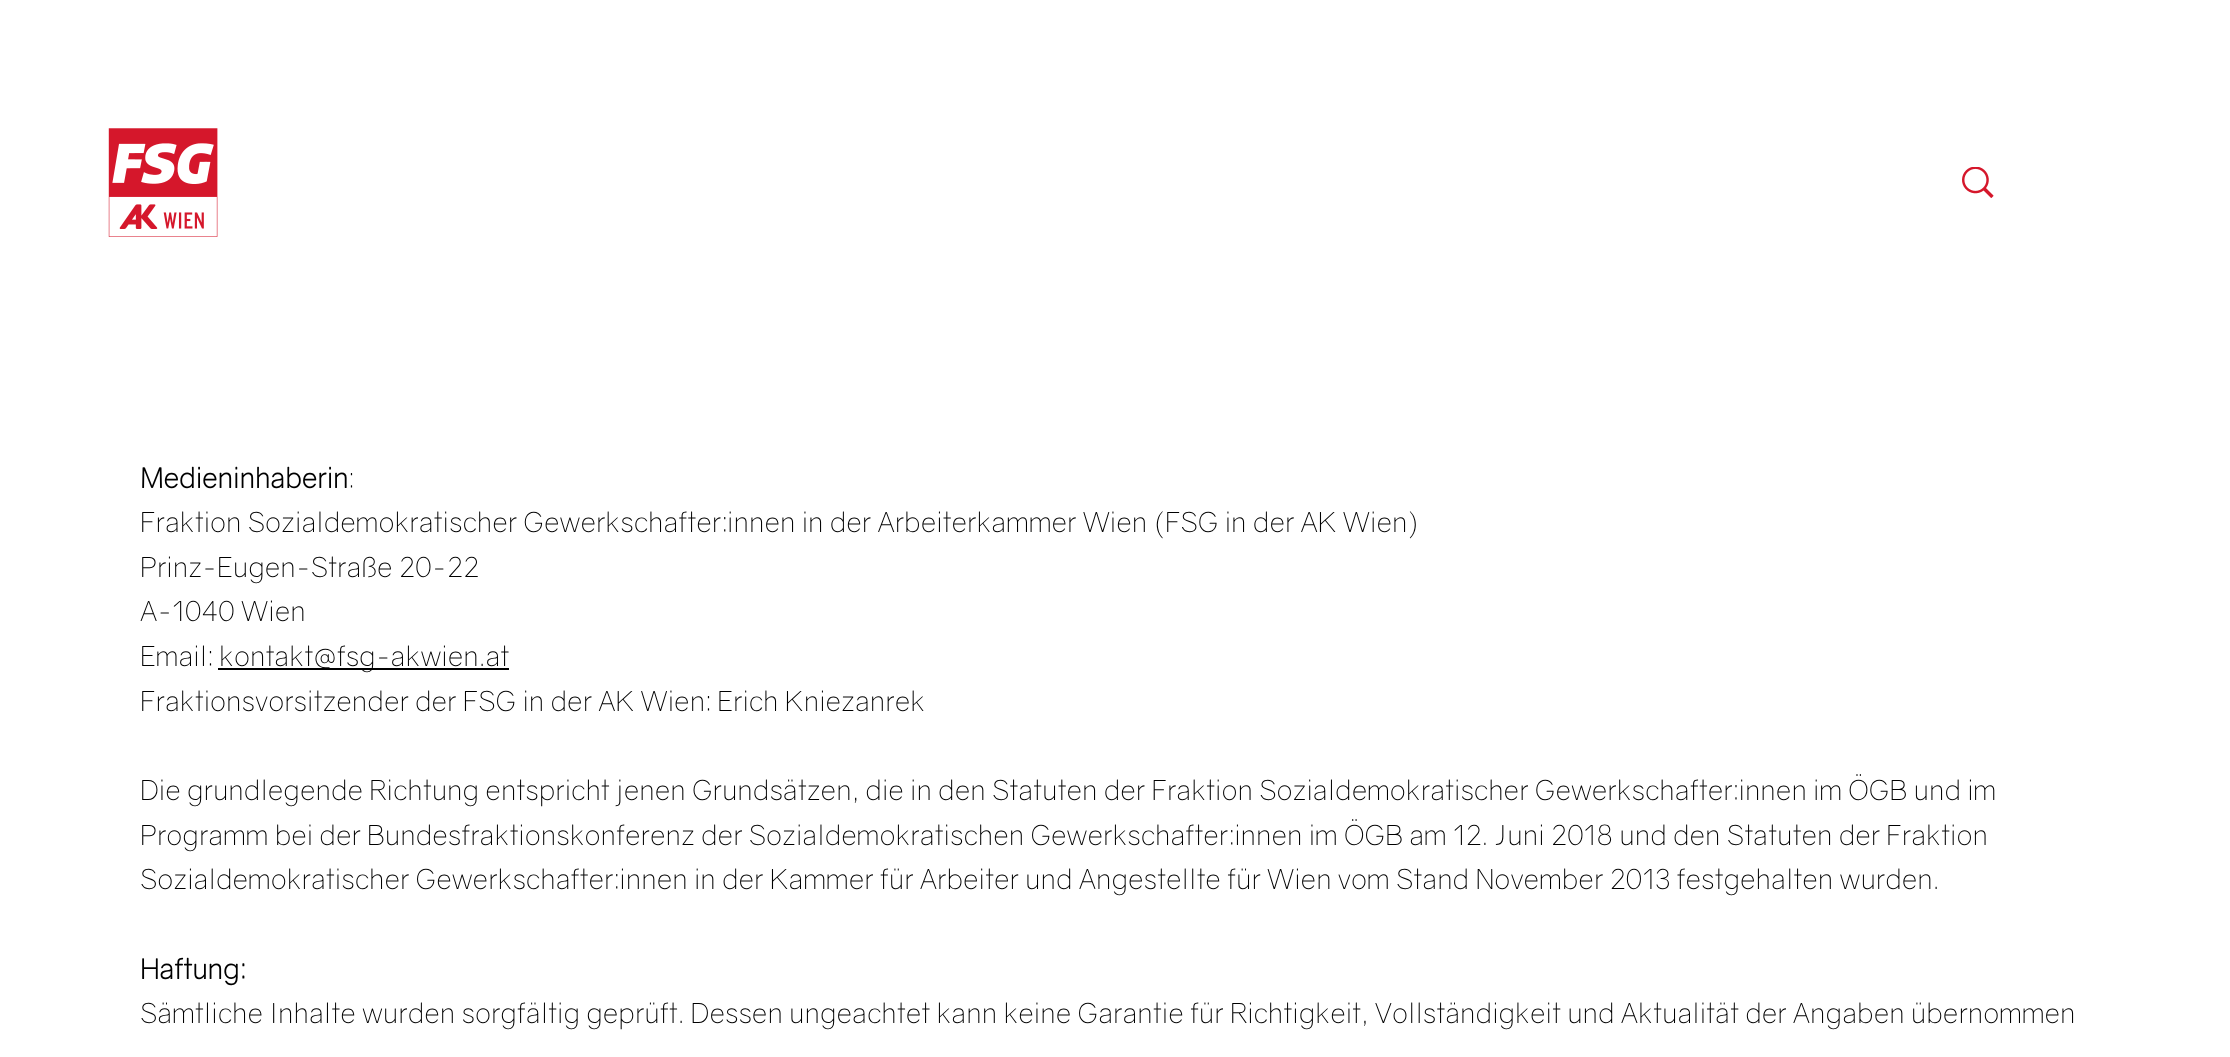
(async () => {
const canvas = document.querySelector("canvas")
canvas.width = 2230
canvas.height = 1057
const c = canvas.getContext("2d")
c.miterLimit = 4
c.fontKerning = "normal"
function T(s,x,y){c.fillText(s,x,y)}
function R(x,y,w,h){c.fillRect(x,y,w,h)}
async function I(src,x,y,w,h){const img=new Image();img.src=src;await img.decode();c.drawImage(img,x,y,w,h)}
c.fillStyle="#fff"
R(0,0,2230,1057)
await I("1.png",108,128,110,109)
await I("2.png",1962,167,32,31)
c.font="bold 27.9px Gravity"
c.fillStyle="#000"
T("Medieninhaberin",140,488)
c.font="300 27.9px Gravity"
T(":",348,488)
T("Fraktion Sozialdemokratischer Gewerkschafter:innen in der Arbeiterkammer Wien (FSG in der AK Wien)",140,532)
T("Prinz-Eugen-Straße 20-22",140,577)
T("A-1040 Wien",140,621)
T("Email:",140,666)
R(218,668,291,2)
T("kontakt@fsg-akwien.at",219,666)
T("Fraktionsvorsitzender der FSG in der AK Wien: Erich Kniezanrek",140,711)
T("Die grundlegende Richtung entspricht jenen Grundsätzen, die in den Statuten der Fraktion Sozialdemokratischer Gewerkschafter:innen im ÖGB und im",140,800)
T("Programm bei der Bundesfraktionskonferenz der Sozialdemokratischen Gewerkschafter:innen im ÖGB am 12. Juni 2018 und den Statuten der Fraktion",140,845)
T("Sozialdemokratischer Gewerkschafter:innen in der Kammer für Arbeiter und Angestellte für Wien vom Stand November 2013 festgehalten wurden.",140,889)
c.font="bold 27.9px Gravity"
T("Haftung:",140,979)
c.font="300 27.9px Gravity"
T("Sämtliche Inhalte wurden sorgfältig geprüft. Dessen ungeachtet kann keine Garantie für Richtigkeit, Vollständigkeit und Aktualität der Angaben übernommen",140,1023)
})()
